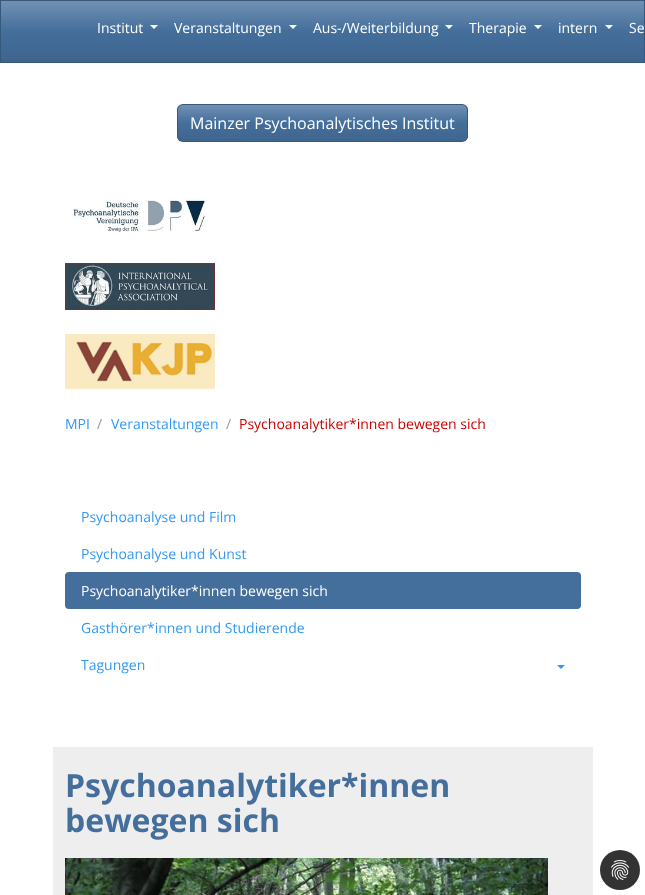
(async () => {
const canvas = document.querySelector("canvas")
canvas.width = 645
canvas.height = 895
const c = canvas.getContext("2d")
c.miterLimit = 4
c.fontKerning = "normal"
function T(s,x,y){c.fillText(s,x,y)}
function R(x,y,w,h){c.fillRect(x,y,w,h)}
function Q(x,y,w,h,r){c.beginPath();c.roundRect(x,y,w,h,r);c.fill()}
async function I(src,x,y,w,h){const img=new Image();img.src=src;await img.decode();c.drawImage(img,x,y,w,h)}
let gradient, path
c.fillStyle="#fff"
R(0,0,645,895)
gradient = c.createLinearGradient(323,1,323,62)
gradient.addColorStop(0,"#7191b3")
gradient.addColorStop(.5,"#446e9b")
gradient.addColorStop(1,"#3f658f")
c.fillStyle = gradient
R(1,1,643,61)
c.strokeStyle="#36587c"
c.strokeRect(.5,.5,644,62)
c.font="14px Open Sans"
c.fillStyle="#fff"
T("Institut",97,33)
path = new Path2D("M150 25h8l-4 4z")
c.fill(path)
T("Veranstaltungen",174,33)
path = new Path2D("M289 25h8l-4 4z")
c.fill(path)
T("Aus-/Weiterbildung",313,33)
path = new Path2D("M445 25h8l-4 4z")
c.fill(path)
T("Therapie",469,33)
path = new Path2D("M534 25h8l-4 4z")
c.fill(path)
T("intern",558,33)
path = new Path2D("M605 25h8l-4 4z")
c.fill(path)
T("Se",629,33)
c.save()
c.beginPath()
c.roundRect(177,104,291,38,6)
c.clip()
gradient = c.createLinearGradient(323,105,323,141)
gradient.addColorStop(0,"#7191b3")
gradient.addColorStop(.5,"#446e9b")
gradient.addColorStop(1,"#3f658f")
c.fillStyle = gradient
R(177,105,291,36)
c.restore()
c.beginPath()
c.roundRect(177.5,104.5,290,37,5.5)
c.stroke()
c.font="16px Open Sans"
T("Mainzer Psychoanalytisches Institut",190,129)
await I("1.png",71,199,135,34)
await I("2.png",65,263,150,47)
await I("3.png",65,334,150,55)
c.font="14px Open Sans"
c.fillStyle="#3399f3"
T("MPI",65,429)
c.fillStyle="#999"
T("/",97,429)
c.fillStyle="#3399f3"
T("Veranstaltungen",111,429)
c.fillStyle="#999"
T("/",226,429)
c.fillStyle="#cd0200"
T("Psychoanalytiker*innen bewegen sich",239,429)
c.fillStyle="#3399f3"
T("Psychoanalyse und Film",81,522)
T("Psychoanalyse und Kunst",81,559)
c.fillStyle="#446e9b"
Q(65,572,516,37,4)
c.fillStyle="#fff"
T("Psychoanalytiker*innen bewegen sich",81,596)
c.fillStyle="#3399f3"
T("Gasthörer*innen und Studierende",81,633)
T("Tagungen",81,670)
path = new Path2D("M557 665h8l-4 4z")
c.fill(path)
c.fillStyle="#eee"
R(53,747,540,148)
c.font="bold 32px Open Sans"
c.fillStyle="#446e9b"
T("Psychoanalytiker*innen",65,797)
T("bewegen sich",65,832)
await I("4.png",65,858,483,37)
c.fillStyle="#333"
c.beginPath()
c.arc(620,870,20,0,7)
c.fill()
await I("5.png",611,860,18,20)
})()
